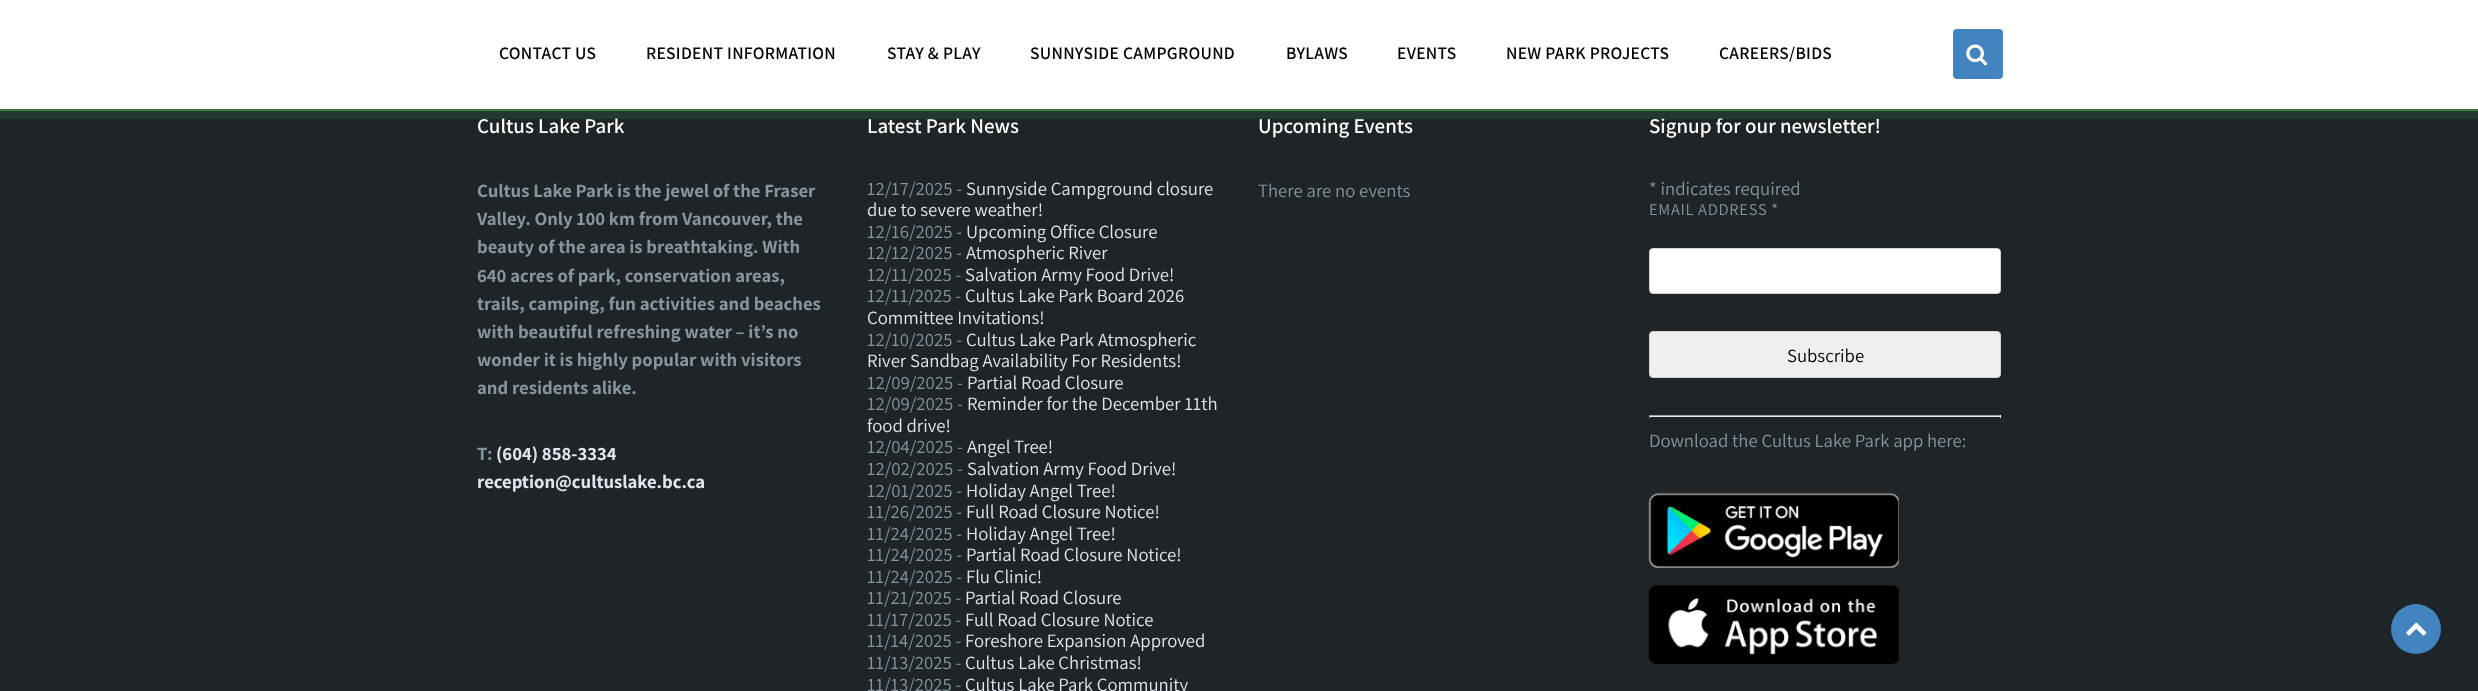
(async () => {
const canvas = document.querySelector("canvas")
canvas.width = 2478
canvas.height = 691
const c = canvas.getContext("2d")
c.miterLimit = 4
c.fontKerning = "normal"
function T(s,x,y){c.fillText(s,x,y)}
function R(x,y,w,h){c.fillRect(x,y,w,h)}
function Q(x,y,w,h,r){c.beginPath();c.roundRect(x,y,w,h,r);c.fill()}
async function I(src,x,y,w,h){const img=new Image();img.src=src;await img.decode();c.drawImage(img,x,y,w,h)}
c.fillStyle="#1e2427"
R(0,0,2478,691)
c.font="600 21px Assistant"
c.fillStyle="#fff"
T("Cultus Lake Park",477,133)
T("Latest Park News",867,133)
T("Upcoming Events",1258,133)
T("Signup for our newsletter!",1649,133)
c.strokeStyle="#234831a3"
c.lineWidth=8
c.strokeRect(-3,-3,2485,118)
R(0,0,2478,111)
c.fillStyle="#154f19cf"
R(0,109,2478,3)
c.letterSpacing="0.3px"
c.font="600 17.5px Assistant"
c.fillStyle="#000"
T("CONTACT US",499,59)
T("RESIDENT INFORMATION",646,59)
T("STAY & PLAY",887,59)
T("SUNNYSIDE CAMPGROUND",1030,59)
T("BYLAWS",1286,59)
T("EVENTS",1397,59)
T("NEW PARK PROJECTS",1506,59)
T("CAREERS/BIDS",1719,59)
c.fillStyle="#4184bf"
Q(1953,29,50,50,4)
await I("1.png",1966,44,22,22)
c.letterSpacing="0px"
c.font="bold 18.75px Assistant"
c.fillStyle="#8a949b"
T("Cultus Lake Park is the jewel of the Fraser",477,197)
T("Valley. Only 100 km from Vancouver, the",477,225)
T("beauty of the area is breathtaking. With",477,253)
T("640 acres of park, conservation areas,",477,282)
T("trails, camping, fun activities and beaches",477,310)
T("with beautiful refreshing water – it’s no",477,338)
T("wonder it is highly popular with visitors",477,366)
T("and residents alike.",477,394)
T("T:",477,460)
c.fillStyle="#e1e7ec"
T("(604) 858-3334",496,460)
T("reception@cultuslake.bc.ca",477,488)
c.font="18.75px Assistant"
c.fillStyle="#8a949b"
T("12/17/2025 -",867,195)
c.fillStyle="#e1e7ec"
T("Sunnyside Campground closure",966,195)
T("due to severe weather!",867,216)
c.fillStyle="#8a949b"
T("12/16/2025 -",867,238)
c.fillStyle="#e1e7ec"
T("Upcoming Office Closure",966,238)
c.fillStyle="#8a949b"
T("12/12/2025 -",867,259)
c.fillStyle="#e1e7ec"
T("Atmospheric River",966,259)
c.fillStyle="#8a949b"
T("12/11/2025 -",867,281)
c.fillStyle="#e1e7ec"
T("Salvation Army Food Drive!",965,281)
c.fillStyle="#8a949b"
T("12/11/2025 -",867,302)
c.fillStyle="#e1e7ec"
T("Cultus Lake Park Board 2026",965,302)
T("Committee Invitations!",867,324)
c.fillStyle="#8a949b"
T("12/10/2025 -",867,346)
c.fillStyle="#e1e7ec"
T("Cultus Lake Park Atmospheric",966,346)
T("River Sandbag Availability For Residents!",867,367)
c.fillStyle="#8a949b"
T("12/09/2025 -",867,389)
c.fillStyle="#e1e7ec"
T("Partial Road Closure",967,389)
c.fillStyle="#8a949b"
T("12/09/2025 -",867,410)
c.fillStyle="#e1e7ec"
T("Reminder for the December 11th",967,410)
T("food drive!",867,432)
c.fillStyle="#8a949b"
T("12/04/2025 -",867,453)
c.fillStyle="#e1e7ec"
T("Angel Tree!",967,453)
c.fillStyle="#8a949b"
T("12/02/2025 -",867,475)
c.fillStyle="#e1e7ec"
T("Salvation Army Food Drive!",967,475)
c.fillStyle="#8a949b"
T("12/01/2025 -",867,497)
c.fillStyle="#e1e7ec"
T("Holiday Angel Tree!",966,497)
c.fillStyle="#8a949b"
T("11/26/2025 -",867,518)
c.fillStyle="#e1e7ec"
T("Full Road Closure Notice!",966,518)
c.fillStyle="#8a949b"
T("11/24/2025 -",867,540)
c.fillStyle="#e1e7ec"
T("Holiday Angel Tree!",966,540)
c.fillStyle="#8a949b"
T("11/24/2025 -",867,561)
c.fillStyle="#e1e7ec"
T("Partial Road Closure Notice!",966,561)
c.fillStyle="#8a949b"
T("11/24/2025 -",867,583)
c.fillStyle="#e1e7ec"
T("Flu Clinic!",966,583)
c.fillStyle="#8a949b"
T("11/21/2025 -",867,604)
c.fillStyle="#e1e7ec"
T("Partial Road Closure",965,604)
c.fillStyle="#8a949b"
T("11/17/2025 -",867,626)
c.fillStyle="#e1e7ec"
T("Full Road Closure Notice",965,626)
c.fillStyle="#8a949b"
T("11/14/2025 -",867,647)
c.fillStyle="#e1e7ec"
T("Foreshore Expansion Approved",965,647)
c.fillStyle="#8a949b"
T("11/13/2025 -",867,669)
c.fillStyle="#e1e7ec"
T("Cultus Lake Christmas!",965,669)
c.fillStyle="#8a949b"
T("11/13/2025 -",867,691)
c.fillStyle="#e1e7ec"
T("Cultus Lake Park Community",965,691)
c.fillStyle="#8a949b"
T("There are no events",1258,197)
T("* indicates required",1649,195)
c.letterSpacing="0.7px"
c.font="16.5px Assistant"
T("EMAIL ADDRESS *",1649,215)
c.fillStyle="#fff"
c.beginPath()
c.roundRect(1649.5,248.5,351,45,3.5)
c.fill()
c.strokeStyle="#ccd5db"
c.lineWidth=1
c.stroke()
c.fillStyle="#efefef"
c.beginPath()
c.roundRect(1649.5,331.5,351,46,3.5)
c.fill()
c.stroke()
c.letterSpacing="0px"
c.font="18.75px Assistant"
c.fillStyle="#000"
T("Subscribe",1787,362)
c.fillStyle="#9f9f9f"
R(1649,415,352,1)
c.fillStyle="#eee"
R(2000,415,1,3)
R(1649,416,352,1)
c.fillStyle="#9f9f9f"
R(1649,415,1,3)
c.fillStyle="#8a949b"
T("Download the Cultus Lake Park app here:",1649,447)
await I("2.png",1648,492,251,76)
await I("3.png",1648,585,251,79)
c.fillStyle="#4184bf"
c.beginPath()
c.arc(2416,629,25,0,7)
c.fill()
await I("4.png",2406,622,21,14)
})()
